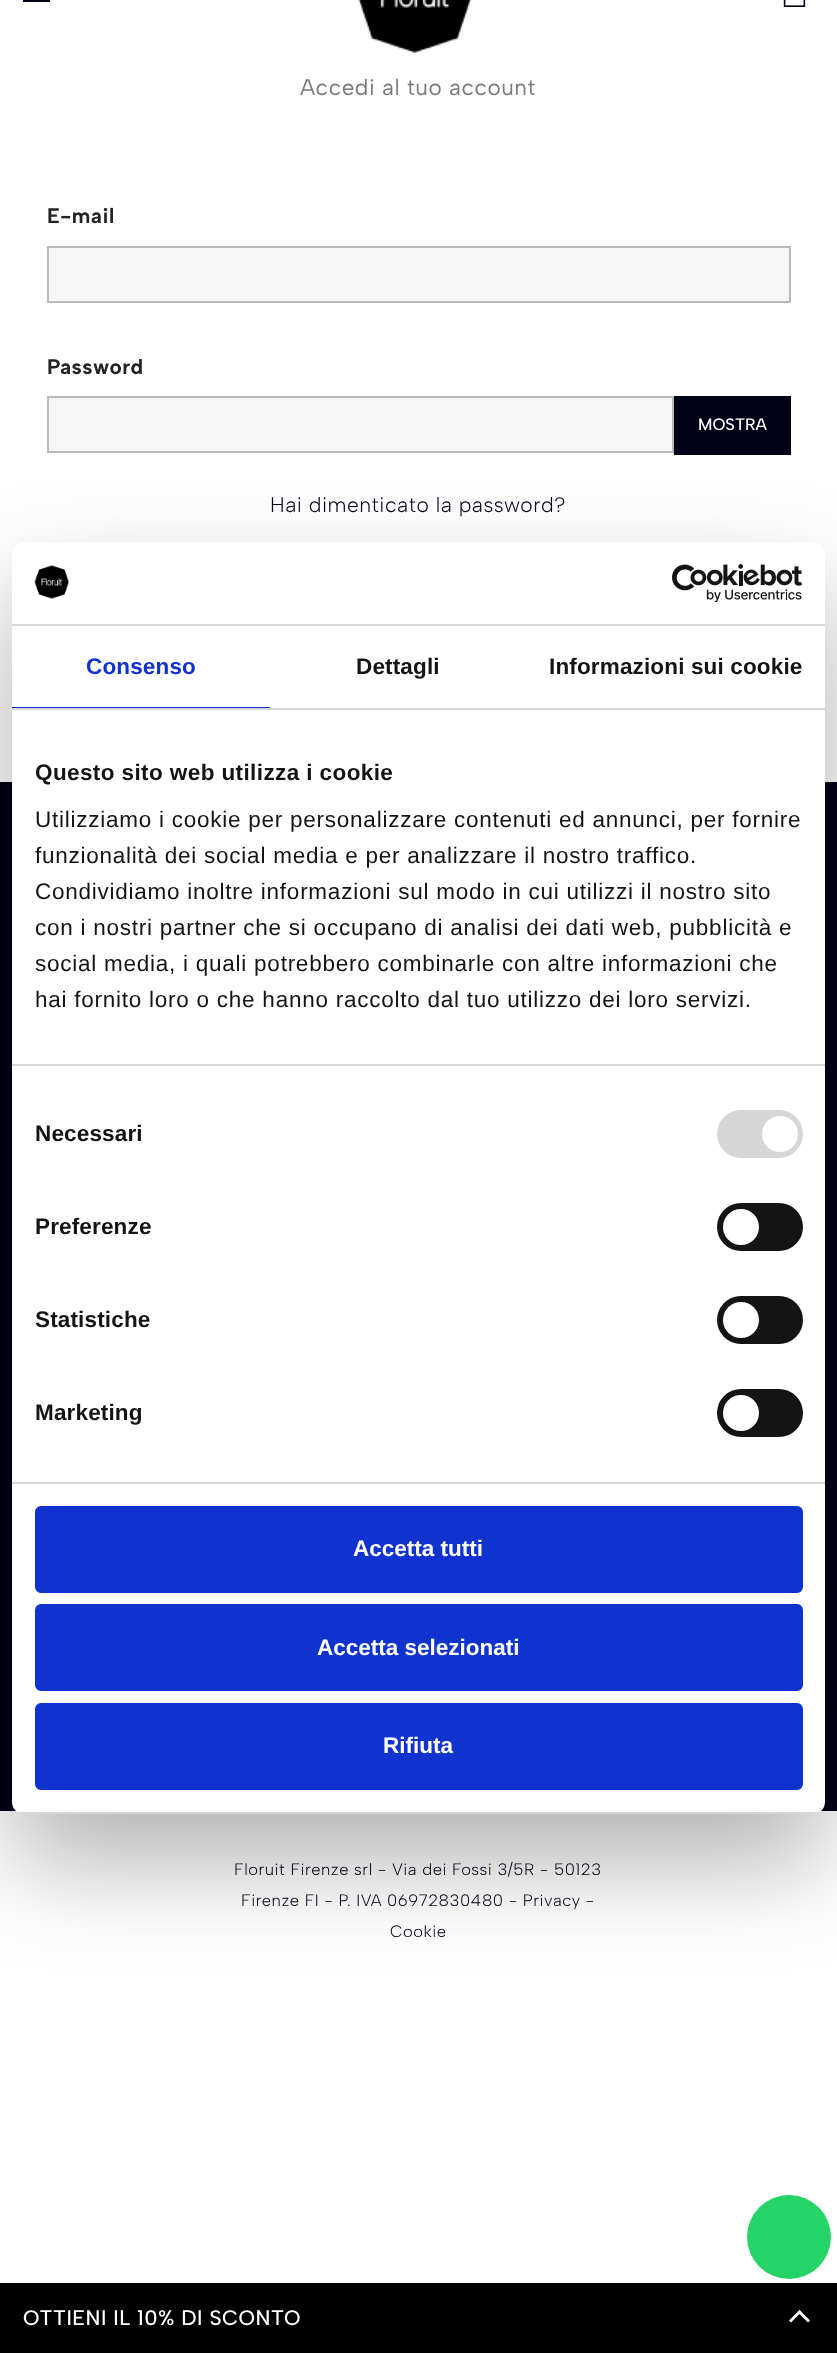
(async () => {
const canvas = document.querySelector("canvas")
canvas.width = 837
canvas.height = 2353
const c = canvas.getContext("2d")
c.miterLimit = 4
c.fontKerning = "normal"
function T(s,x,y){c.fillText(s,x,y)}
function R(x,y,w,h){c.fillRect(x,y,w,h)}
function Q(x,y,w,h,r){c.beginPath();c.roundRect(x,y,w,h,r);c.fill()}
async function I(src,x,y,w,h){const img=new Image();img.src=src;await img.decode();c.drawImage(img,x,y,w,h)}
let path
c.fillStyle="#fff"
R(0,0,837,2353)
c.fillStyle="#000218"
R(23,0,27,2)
await I("1.png",358,0,114,53)
await I("2.png",783,0,23,7)
c.letterSpacing="0.5px"
c.font="22.5px Albert Sans"
c.fillStyle="#7a7a7a"
T("Accedi al tuo account",300,95)
c.font="bold 21px Albert Sans"
c.fillStyle="#232323"
T("E-mail",47,223)
c.fillStyle="#f6f6f6"
c.beginPath()
c.rect(48,247,742,55)
c.fill()
c.strokeStyle="#b9b9b9"
c.lineWidth=2
c.stroke()
c.fillStyle="#232323"
T("Password",47,374)
c.fillStyle="#f6f6f6"
c.beginPath()
c.rect(48,397,625,55)
c.fill()
c.stroke()
c.fillStyle="#000218"
R(674,396,117,59)
c.letterSpacing="0px"
c.font="500 16.5px Albert Sans"
c.fillStyle="#fff"
T("MOSTRA",698,430)
c.letterSpacing="0.5px"
c.font="300 21px Albert Sans"
c.fillStyle="#000218"
T("Hai dimenticato la password?",270,512)
R(0,782,837,1029)
c.font="300 16.5px Albert Sans"
T("Floruit Firenze srl - Via dei Fossi 3/5R - 50123",234,1875)
T("Firenze FI - P. IVA 06972830480 - Privacy -",241,1906)
T("Cookie",390,1937)
c.fillStyle="#25d366"
c.beginPath()
c.arc(789,2237,42,0,7)
c.fill()
c.fillStyle="#000"
R(0,2283,837,70)
c.font="500 21px Albert Sans"
c.fillStyle="#fff"
T("OTTIENI IL 10% DI SCONTO",23,2325)
path = new Path2D("M801.5 2312l-10.5 10.5l-2-2l10.5-10.5z")
c.fill(path)
path = new Path2D("M810 2320.5l-2 2l-10.5-10.5l2-2z")
c.fill(path)
c.fillStyle="#0000004d"
c.filter="blur(51px)"
c.beginPath()
c.roundRect(12,590,813,1272,12)
c.fill()
c.filter="none"
c.fillStyle="#fff"
Q(12,542,813,1272,12)
c.fillStyle="#d6d6d6"
R(12,624,813,2)
await I("3.png",34,565,35,34)
await I("4.png",672,564,130,38)
R(12,708,813,2)
c.fillStyle="#1032cf"
R(12,707,258,1)
c.letterSpacing="0.15px"
c.font="bold 22.5px Liberation Sans"
T("Consenso",86,674)
c.fillStyle="#141414"
T("Dettagli",356,674)
T("Informazioni sui cookie",549,674)
c.fillStyle="#d6d6d6"
R(12,1064,813,2)
c.letterSpacing="0.4px"
c.fillStyle="#141414"
T("Questo sito web utilizza i cookie",35,780)
c.letterSpacing="0.75px"
c.font="22.5px Liberation Sans"
T("Utilizziamo i cookie per personalizzare contenuti ed annunci, per fornire",35,827)
T("funzionalità dei social media e per analizzare il nostro traffico.",35,863)
T("Condividiamo inoltre informazioni sul modo in cui utilizzi il nostro sito",35,899)
T("con i nostri partner che si occupano di analisi dei dati web, pubblicità e",35,935)
T("social media, i quali potrebbero combinarle con altre informazioni che",35,971)
T("hai fornito loro o che hanno raccolto dal tuo utilizzo dei loro servizi.",35,1007)
c.fillStyle="#d6d6d6"
R(12,1482,813,2)
c.letterSpacing="0.15px"
c.font="bold 22.5px Liberation Sans"
c.fillStyle="#141414"
T("Necessari",35,1141)
c.fillStyle="#d6d6d6"
Q(717,1110,86,48,24)
c.fillStyle="#fff"
c.beginPath()
c.arc(780,1134,18,0,7)
c.fill()
c.fillStyle="#141414"
T("Preferenze",35,1234)
Q(717,1203,86,48,24)
c.fillStyle="#fff"
c.beginPath()
c.arc(741,1227,18,0,7)
c.fill()
c.fillStyle="#141414"
T("Statistiche",35,1327)
Q(717,1296,86,48,24)
c.fillStyle="#fff"
c.beginPath()
c.arc(741,1320,18,0,7)
c.fill()
c.fillStyle="#141414"
T("Marketing",35,1420)
Q(717,1389,86,48,24)
c.fillStyle="#fff"
c.beginPath()
c.arc(741,1413,18,0,7)
c.fill()
c.save()
c.beginPath()
c.roundRect(12,542,813,1272,12)
c.clip()
c.fillStyle="#d6d6d6"
R(12,1812,813,2)
c.restore()
c.fillStyle="#1032cf"
c.beginPath()
c.roundRect(36.5,1507.5,765,84,4.5)
c.fill()
c.strokeStyle="#1032cf"
c.lineWidth=3
c.stroke()
c.letterSpacing="0px"
c.fillStyle="#fff"
T("Accetta tutti",353,1556)
c.fillStyle="#1032cf"
c.beginPath()
c.roundRect(36.5,1605.5,765,84,4.5)
c.fill()
c.stroke()
c.fillStyle="#fff"
T("Accetta selezionati",317,1655)
c.fillStyle="#1032cf"
c.beginPath()
c.roundRect(36.5,1704.5,765,84,4.5)
c.fill()
c.stroke()
c.fillStyle="#fff"
T("Rifiuta",383,1753)
})()
